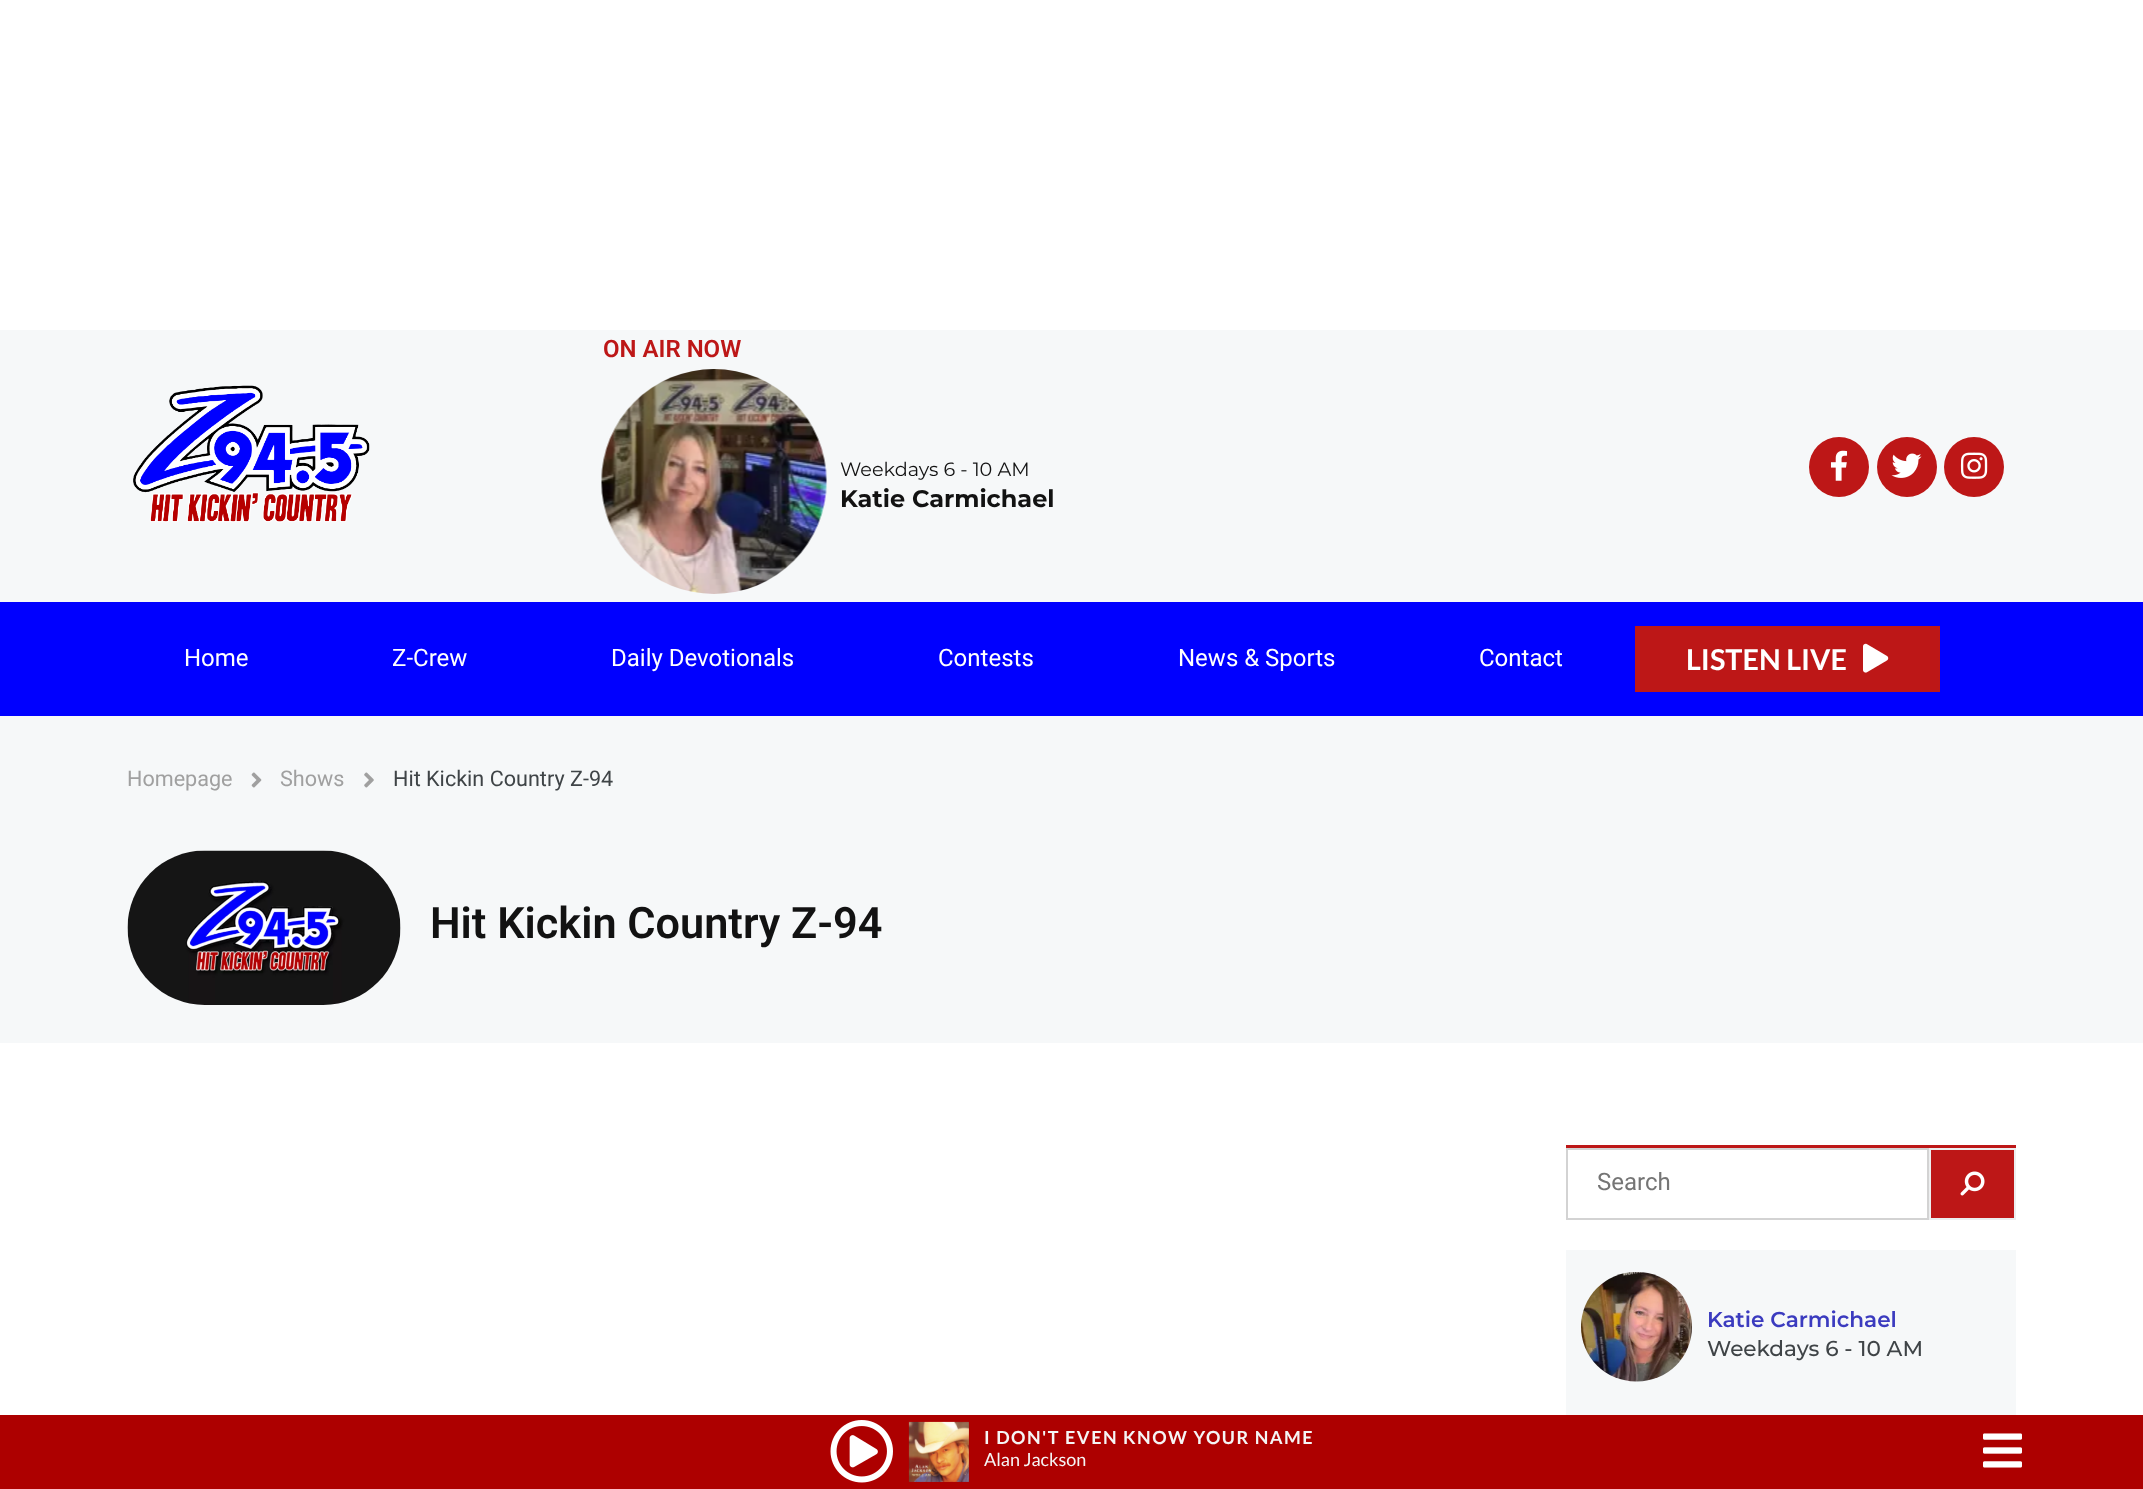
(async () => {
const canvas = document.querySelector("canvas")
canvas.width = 2143
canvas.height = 1489
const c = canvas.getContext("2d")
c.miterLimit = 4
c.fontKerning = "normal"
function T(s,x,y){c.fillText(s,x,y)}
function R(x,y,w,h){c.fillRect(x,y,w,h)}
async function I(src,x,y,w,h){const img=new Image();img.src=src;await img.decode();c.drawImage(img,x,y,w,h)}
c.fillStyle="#fff"
R(0,0,2143,1489)
c.fillStyle="#f6f8f9"
R(0,330,2143,272)
await I("1.png",133,385,237,138)
c.font="600 24px Roboto"
c.fillStyle="#bd1717"
T("ON AIR NOW",603,357)
await I("2.png",601,369,226,225)
c.font="19.25px Montserrat"
c.fillStyle="#121212"
T("Weekdays 6 - 10 AM",840,476)
c.font="bold 24px Montserrat"
T("Katie Carmichael",840,507)
c.fillStyle="#bd1717"
c.beginPath()
c.arc(1839,467,30,0,7)
c.fill()
await I("3.png",1830,450,18,31)
c.beginPath()
c.arc(1907,467,30,0,7)
c.fill()
await I("4.png",1891,453,31,25)
c.beginPath()
c.arc(1974,467,30,0,7)
c.fill()
await I("5.png",1960,452,28,27)
c.fillStyle="#00f"
R(0,602,2143,114)
c.font="24px Roboto"
c.fillStyle="#fff"
T("Home",184,666)
T("Z-Crew",392,666)
T("Daily Devotionals",611,666)
T("Contests",938,666)
T("News & Sports",1178,666)
T("Contact",1479,666)
c.fillStyle="#bd1717"
R(1635,626,305,66)
c.font="bold 28.75px Lato"
c.fillStyle="#fff"
T("LISTEN LIVE",1686,670)
await I("6.png",1863,643,26,30)
c.fillStyle="#f6f8f9"
R(0,716,2143,327)
c.font="21.6px Roboto"
c.fillStyle="#a0a0a0"
T("Homepage",127,786)
await I("7.png",251,772,11,16)
T("Shows",280,786)
await I("8.png",364,772,10,16)
c.fillStyle="#3f4447"
T("Hit Kickin Country Z-94",393,786)
await I("9.png",127,850,274,155)
c.font="600 43.25px Roboto"
c.fillStyle="#121212"
T("Hit Kickin Country Z-94",430,938)
c.fillStyle="#bd1717"
R(1566,1145,450,3)
c.strokeStyle="#d3d3d3"
c.lineWidth=2
c.strokeRect(1567,1149,361,70)
c.font="24px Roboto"
c.fillStyle="#757575"
T("Search",1597,1190)
c.fillStyle="#bd1717"
c.beginPath()
c.rect(1930,1149,85,70)
c.fill()
c.strokeStyle="#eceeef"
c.stroke()
await I("10.png",1960,1171,25,25)
c.fillStyle="#f6f8f9"
R(1566,1250,450,165)
await I("11.png",1581,1272,111,110)
c.font="600 21.6px Montserrat"
c.fillStyle="#3b3bbf"
T("Katie Carmichael",1707,1327)
c.font="500 21.6px Montserrat"
c.fillStyle="#3f4447"
T("Weekdays 6 - 10 AM",1707,1356)
c.fillStyle="#ad0000"
R(0,1415,2143,74)
await I("12.png",830,1420,63,63)
await I("13.png",908,1421,61,61)
c.letterSpacing="1.5px"
c.font="bold 18px Lato"
c.fillStyle="#f5f5f5"
T("I DON'T EVEN KNOW YOUR NAME",984,1444)
c.letterSpacing="0px"
c.font="18px Lato"
T("Alan Jackson",984,1466)
await I("14.png",1983,1433,39,35)
})()
